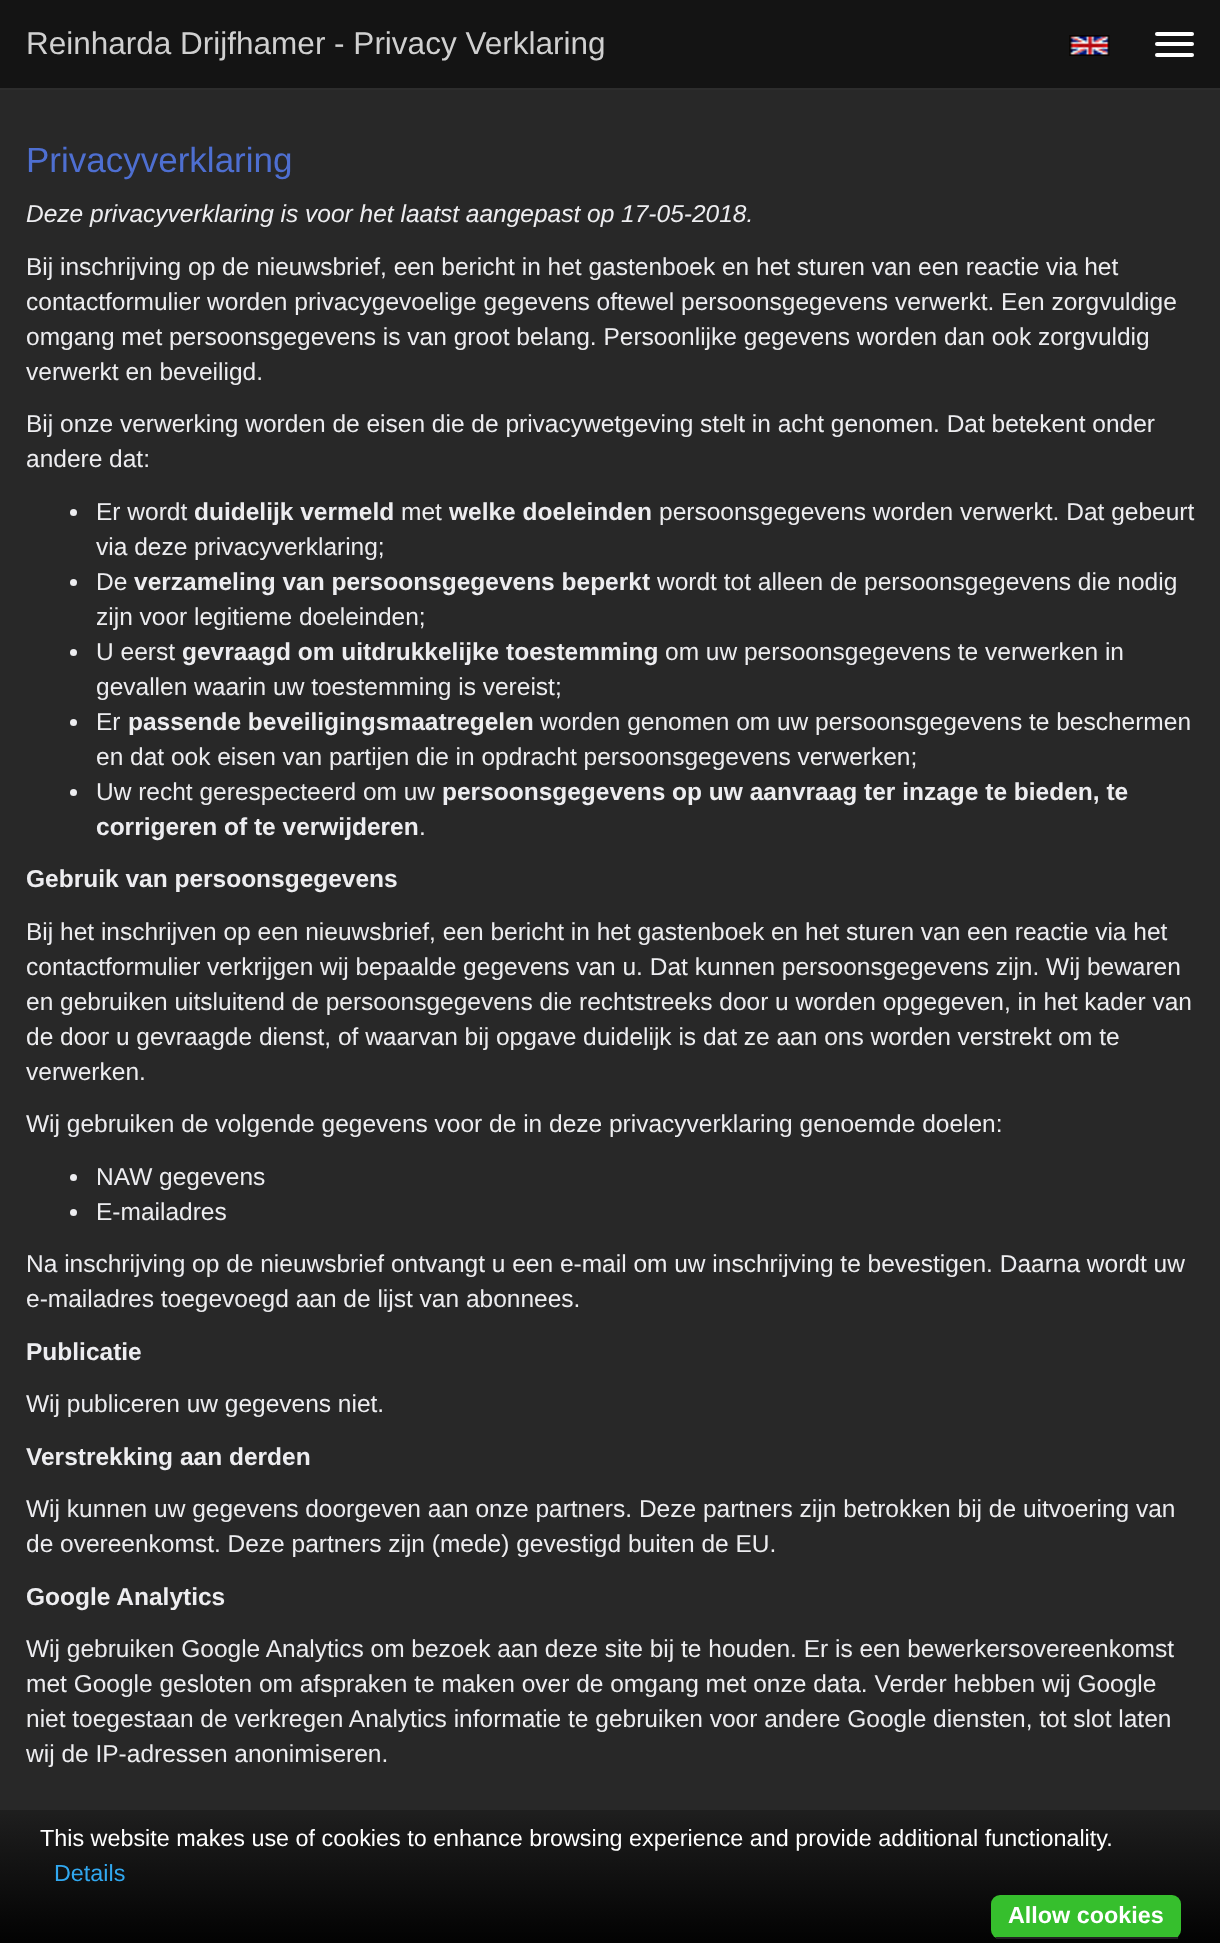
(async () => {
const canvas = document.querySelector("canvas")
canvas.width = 1220
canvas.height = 1943
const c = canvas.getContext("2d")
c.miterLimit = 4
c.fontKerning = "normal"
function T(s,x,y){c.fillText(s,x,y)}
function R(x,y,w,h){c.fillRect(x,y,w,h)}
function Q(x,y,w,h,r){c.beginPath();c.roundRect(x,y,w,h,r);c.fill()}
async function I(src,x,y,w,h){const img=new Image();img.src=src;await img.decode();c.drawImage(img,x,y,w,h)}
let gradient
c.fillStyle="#282828"
R(0,0,1220,1943)
c.fillStyle="#141414"
R(0,0,1220,88)
c.fillStyle="#2d2d2d"
R(0,88,1220,2)
c.font="31.5px Liberation Sans"
c.fillStyle="#d0d0d0"
T("Reinharda Drijfhamer - Privacy Verklaring",26,54)
c.fillStyle="#fff"
Q(1155,32,39,4,2)
Q(1155,42,39,4,2)
Q(1155,53,39,4,2)
await I("1.png",1069,35,41,21)
c.font="35px Liberation Sans"
c.fillStyle="#4e6fd1"
T("Privacyverklaring",26,172)
c.font="italic 24.5px Liberation Sans"
c.fillStyle="#ededf0"
T("Deze privacyverklaring is voor het laatst aangepast op 17-05-2018.",26,222)
c.font="24.5px Liberation Sans"
T("Bij inschrijving op de nieuwsbrief, een bericht in het gastenboek en het sturen van een reactie via het",26,275)
T("contactformulier worden privacygevoelige gegevens oftewel persoonsgegevens verwerkt. Een zorgvuldige",26,310)
T("omgang met persoonsgegevens is van groot belang. Persoonlijke gegevens worden dan ook zorgvuldig",26,345)
T("verwerkt en beveiligd.",26,380)
T("Bij onze verwerking worden de eisen die de privacywetgeving stelt in acht genomen. Dat betekent onder",26,432)
T("andere dat:",26,467)
c.beginPath()
c.arc(73.5,512.5,3.5,0,7)
c.fill()
T("Er wordt",96,520)
c.font="bold 24.5px Liberation Sans"
T("duidelijk vermeld",194,520)
c.font="24.5px Liberation Sans"
T("met",401,520)
c.font="bold 24.5px Liberation Sans"
T("welke doeleinden",449,520)
c.font="24.5px Liberation Sans"
T("persoonsgegevens worden verwerkt. Dat gebeurt",659,520)
T("via deze privacyverklaring;",96,555)
c.beginPath()
c.arc(73.5,582.5,3.5,0,7)
c.fill()
T("De",96,590)
c.font="bold 24.5px Liberation Sans"
T("verzameling van persoonsgegevens beperkt",134,590)
c.font="24.5px Liberation Sans"
T("wordt tot alleen de persoonsgegevens die nodig",657,590)
T("zijn voor legitieme doeleinden;",96,625)
c.beginPath()
c.arc(73.5,652.5,3.5,0,7)
c.fill()
T("U eerst",96,660)
c.font="bold 24.5px Liberation Sans"
T("gevraagd om uitdrukkelijke toestemming",182,660)
c.font="24.5px Liberation Sans"
T("om uw persoonsgegevens te verwerken in",665,660)
T("gevallen waarin uw toestemming is vereist;",96,695)
c.beginPath()
c.arc(73.5,722.5,3.5,0,7)
c.fill()
T("Er",96,730)
c.font="bold 24.5px Liberation Sans"
T("passende beveiligingsmaatregelen",128,730)
c.font="24.5px Liberation Sans"
T("worden genomen om uw persoonsgegevens te beschermen",540,730)
T("en dat ook eisen van partijen die in opdracht persoonsgegevens verwerken;",96,765)
c.beginPath()
c.arc(73.5,792.5,3.5,0,7)
c.fill()
T("Uw recht gerespecteerd om uw",96,800)
c.font="bold 24.5px Liberation Sans"
T("persoonsgegevens op uw aanvraag ter inzage te bieden, te",442,800)
T("corrigeren of te verwijderen",96,835)
c.font="24.5px Liberation Sans"
T(".",419,835)
c.font="bold 24.5px Liberation Sans"
T("Gebruik van persoonsgegevens",26,887)
c.font="24.5px Liberation Sans"
T("Bij het inschrijven op een nieuwsbrief, een bericht in het gastenboek en het sturen van een reactie via het",26,940)
T("contactformulier verkrijgen wij bepaalde gegevens van u. Dat kunnen persoonsgegevens zijn. Wij bewaren",26,975)
T("en gebruiken uitsluitend de persoonsgegevens die rechtstreeks door u worden opgegeven, in het kader van",26,1010)
T("de door u gevraagde dienst, of waarvan bij opgave duidelijk is dat ze aan ons worden verstrekt om te",26,1045)
T("verwerken.",26,1080)
T("Wij gebruiken de volgende gegevens voor de in deze privacyverklaring genoemde doelen:",26,1132)
c.beginPath()
c.arc(73.5,1177.5,3.5,0,7)
c.fill()
T("NAW gegevens",96,1185)
c.beginPath()
c.arc(73.5,1212.5,3.5,0,7)
c.fill()
T("E-mailadres",96,1220)
T("Na inschrijving op de nieuwsbrief ontvangt u een e-mail om uw inschrijving te bevestigen. Daarna wordt uw",26,1272)
T("e-mailadres toegevoegd aan de lijst van abonnees.",26,1307)
c.font="bold 24.5px Liberation Sans"
T("Publicatie",26,1360)
c.font="24.5px Liberation Sans"
T("Wij publiceren uw gegevens niet.",26,1412)
c.font="bold 24.5px Liberation Sans"
T("Verstrekking aan derden",26,1465)
c.font="24.5px Liberation Sans"
T("Wij kunnen uw gegevens doorgeven aan onze partners. Deze partners zijn betrokken bij de uitvoering van",26,1517)
T("de overeenkomst. Deze partners zijn (mede) gevestigd buiten de EU.",26,1552)
c.font="bold 24.5px Liberation Sans"
T("Google Analytics",26,1605)
c.font="24.5px Liberation Sans"
T("Wij gebruiken Google Analytics om bezoek aan deze site bij te houden. Er is een bewerkersovereenkomst",26,1657)
T("met Google gesloten om afspraken te maken over de omgang met onze data. Verder hebben wij Google",26,1692)
T("niet toegestaan de verkregen Analytics informatie te gebruiken voor andere Google diensten, tot slot laten",26,1727)
T("wij de IP-adressen anonimiseren.",26,1762)
gradient = c.createLinearGradient(611,1810,611,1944)
gradient.addColorStop(0,"#1e1e1ef2")
gradient.addColorStop(1,"#000000f2")
c.fillStyle = gradient
R(0,1810,1220,133)
c.font="23.35px Liberation Sans"
c.fillStyle="#fff"
T("This website makes use of cookies to enhance browsing experience and provide additional functionality.",40,1846)
c.fillStyle="#31a8f0"
T("Details",54,1881)
c.fillStyle="#36bf2d"
Q(991,1895,190,44,9)
c.fillStyle="#222"
R(996,1937,182,2)
c.font="bold 23.35px Liberation Sans"
c.fillStyle="#fff"
T("Allow cookies",1008,1923)
})()
